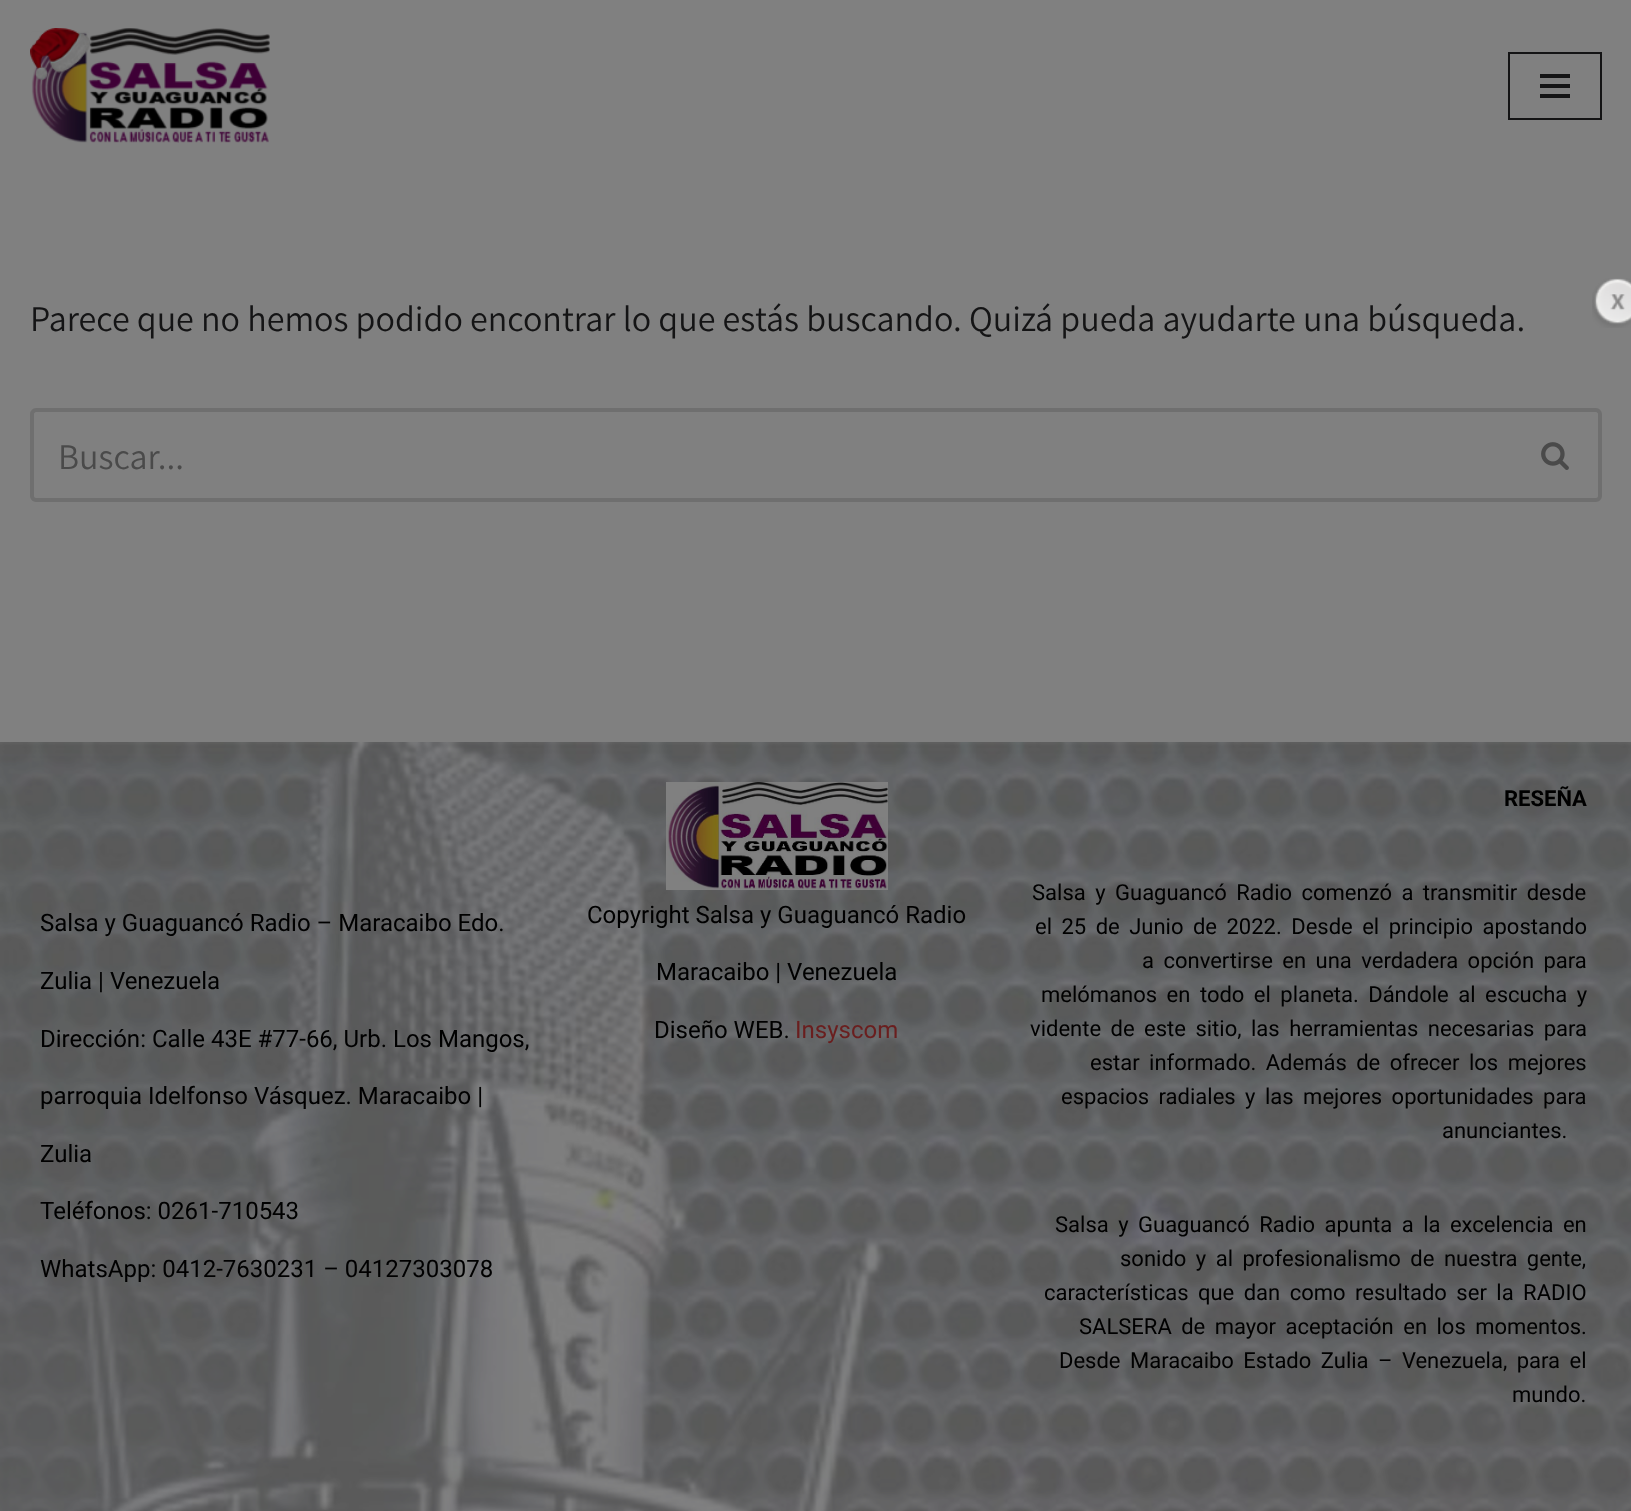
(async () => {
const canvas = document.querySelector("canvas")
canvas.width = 1631
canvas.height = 1511
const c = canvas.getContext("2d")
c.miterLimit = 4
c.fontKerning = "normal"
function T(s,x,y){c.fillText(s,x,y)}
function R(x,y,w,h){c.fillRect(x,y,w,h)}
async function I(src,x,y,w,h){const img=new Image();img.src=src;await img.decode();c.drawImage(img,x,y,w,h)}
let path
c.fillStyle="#808080"
R(0,0,1631,1511)
await I("1.png",30,28,240,115)
c.strokeStyle="#141415"
c.lineWidth=2
c.strokeRect(1509,53,92,66)
c.fillStyle="#141415"
R(1540,74,30,4)
R(1540,84,30,4)
R(1540,94,30,4)
c.font="200 36px Assistant"
T("Parece que no hemos podido encontrar lo que estás buscando. Quizá pueda ayudarte una búsqueda.",30,331)
c.fillStyle="#6f6f6f"
path = new Path2D("M36 408h1476v94h-1476c-3 0-6-3-6-6v-82c0-3 3-6 6-6zm0 4h1476v86h-1476c-1 0-2-1-2-2v-82c0-1 1-2 2-2z")
c.fill(path,"evenodd")
c.fillStyle="#4a4a4a"
T("Buscar...",58,469)
c.fillStyle="#6f6f6f"
path = new Path2D("M1512 408h84c3 0 6 3 6 6v82c0 3-3 6-6 6h-84zm0 4h84c1 0 2 1 2 2v82c0 1-1 2-2 2h-84z")
c.fill(path,"evenodd")
await I("2.png",1541,442,28,28)
await I("3.png",0,742,1631,769)
c.font="24px Roboto"
c.fillStyle="#000"
T("Salsa y Guaguancó Radio – Maracaibo Edo.",40,931)
T("Zulia | Venezuela",40,989)
T("Dirección: Calle 43E #77-66, Urb. Los Mangos,",40,1047)
T("parroquia Idelfonso Vásquez. Maracaibo |",40,1104)
T("Zulia",40,1162)
T("Teléfonos: 0261-710543",40,1219)
T("WhatsApp: 0412-7630231 – 04127303078",40,1277)
await I("4.png",666,782,222,108)
T("Copyright Salsa y Guaguancó Radio",587,923)
T("Maracaibo | Venezuela",656,980)
T("Diseño WEB.",654,1038)
c.fillStyle="#6a1e1e"
T("Insyscom",795,1038)
c.font="bold 22px Roboto"
c.fillStyle="#000"
T("RESEÑA",1504,806)
c.wordSpacing="4px"
c.font="22px Roboto"
T("Salsa y Guaguancó Radio comenzó a transmitir desde",1032,900)
T("el 25 de Junio de 2022. Desde el principio apostando",1035,934)
T("a convertirse en una verdadera opción para",1142,968)
T("melómanos en todo el planeta. Dándole al escucha y",1041,1002)
T("vidente de este sitio, las herramientas necesarias para",1030,1036)
T("estar informado. Además de ofrecer los mejores",1090,1070)
T("espacios radiales y las mejores oportunidades para",1061,1104)
c.wordSpacing="0px"
T("anunciantes.",1442,1138)
c.wordSpacing="4px"
T("Salsa y Guaguancó Radio apunta a la excelencia en",1055,1232)
T("sonido y al profesionalismo de nuestra gente,",1120,1266)
T("características que dan como resultado ser la RADIO",1044,1300)
T("SALSERA de mayor aceptación en los momentos.",1079,1334)
T("Desde Maracaibo Estado Zulia – Venezuela, para el",1059,1368)
c.wordSpacing="0px"
T("mundo.",1512,1402)
await I("5.png",1592,278,39,50)
})()
